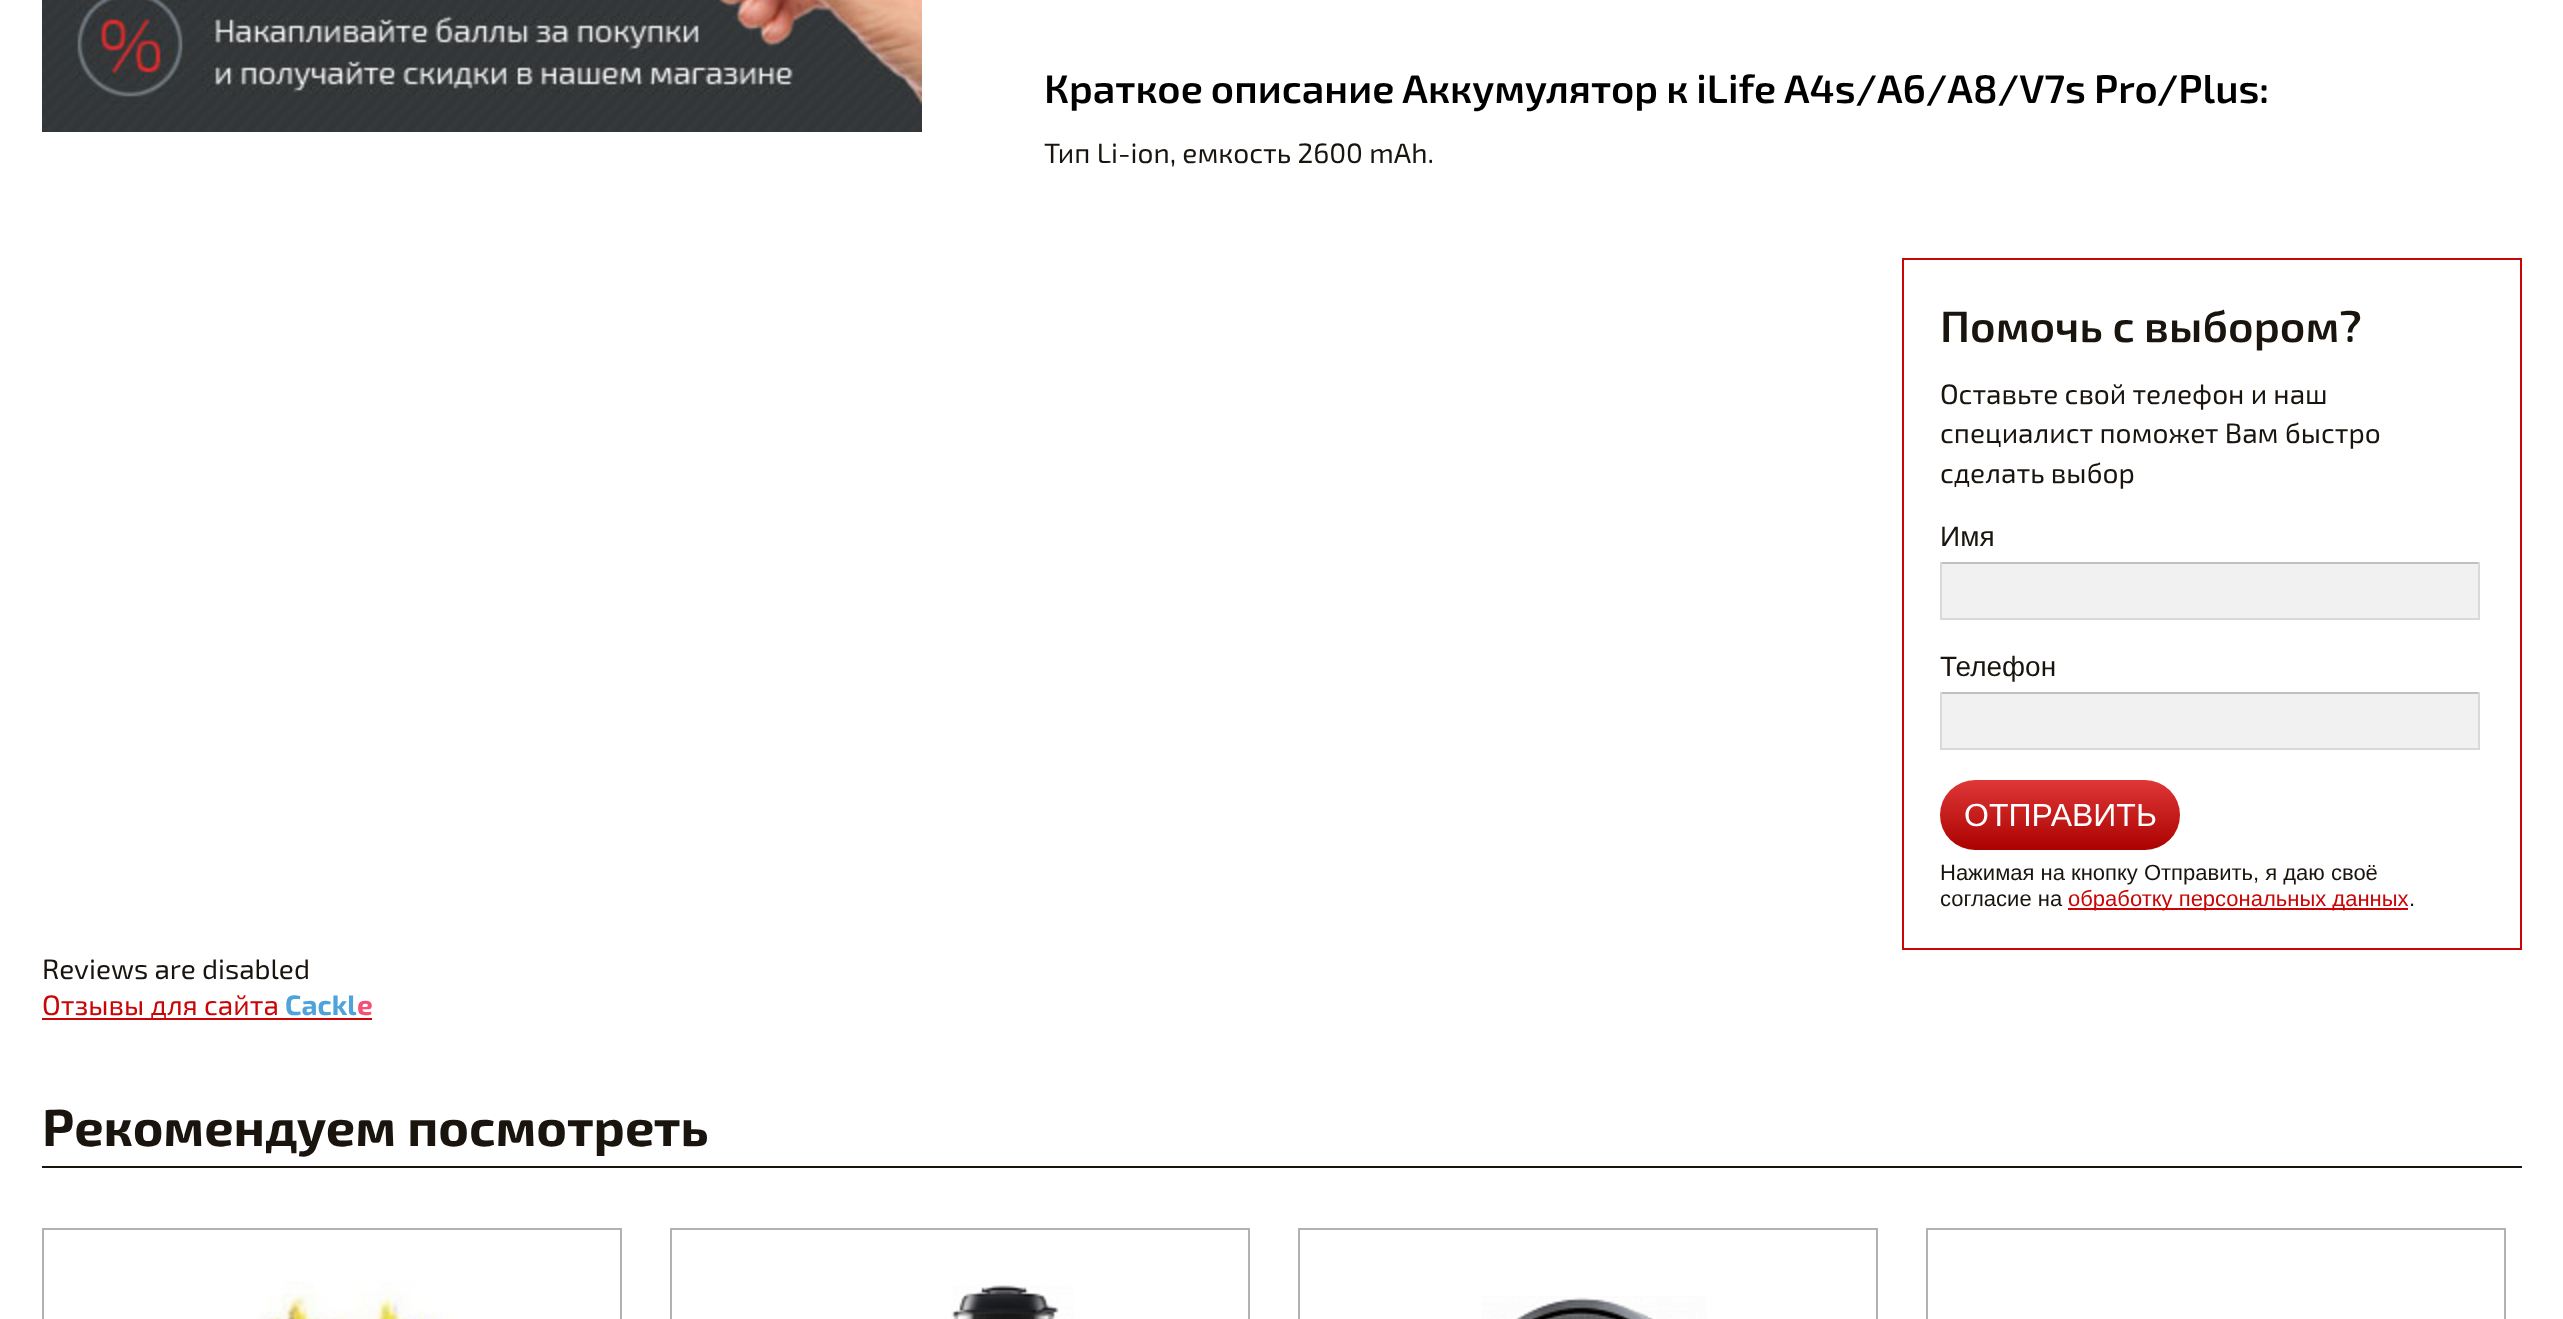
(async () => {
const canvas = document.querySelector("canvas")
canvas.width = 2563
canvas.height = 1319
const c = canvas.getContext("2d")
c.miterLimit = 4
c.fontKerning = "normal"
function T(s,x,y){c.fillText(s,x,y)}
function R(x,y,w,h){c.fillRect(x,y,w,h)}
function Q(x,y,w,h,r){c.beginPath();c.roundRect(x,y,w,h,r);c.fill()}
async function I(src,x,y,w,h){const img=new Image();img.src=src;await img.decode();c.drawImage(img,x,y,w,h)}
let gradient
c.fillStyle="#fff"
R(0,0,2563,1319)
await I("1.png",42,0,880,132)
c.wordSpacing="-0.75px"
c.font="600 40px 'Exo 2'"
c.fillStyle="#000"
T("Краткое описание Аккумулятор к iLife A4s/A6/A8/V7s Pro/Plus:",1044,103)
c.wordSpacing="0px"
c.font="28px 'Exo 2'"
c.fillStyle="#19140e"
T("Тип Li-ion, емкость 2600 mAh.",1044,163)
c.strokeStyle="#c90505"
c.lineWidth=2
c.strokeRect(1903,259,618,690)
c.font="600 44px 'Exo 2'"
T("Помочь с выбором?",1940,342)
c.font="28px 'Exo 2'"
T("Оставьте свой телефон и наш",1940,404)
T("специалист поможет Вам быстро",1940,443)
T("сделать выбор",1940,483)
c.font="28px Liberation Sans"
T("Имя",1940,546)
c.fillStyle="#f1f1f1"
R(1942,564,536,54)
c.fillStyle="#c0c0c0"
R(1940,562,540,2)
c.fillStyle="#d9d9d9"
R(2478,562,2,58)
R(1940,618,540,2)
R(1940,562,2,58)
c.fillStyle="#19140e"
T("Телефон",1940,676)
c.fillStyle="#f1f1f1"
R(1942,694,536,54)
c.fillStyle="#c0c0c0"
R(1940,692,540,2)
c.fillStyle="#d9d9d9"
R(2478,692,2,58)
R(1940,748,540,2)
R(1940,692,2,58)
gradient = c.createLinearGradient(2060,780,2060,850)
gradient.addColorStop(0,"#df3737")
gradient.addColorStop(1,"#ab0101")
c.fillStyle = gradient
Q(1940,780,240,70,35)
c.font="32px Liberation Sans"
c.fillStyle="#fff"
T("ОТПРАВИТЬ",1964,826)
c.font="22px Liberation Sans"
c.fillStyle="#19140e"
T("Нажимая на кнопку Отправить, я даю своё",1940,880)
T("согласие на",1940,906)
c.fillStyle="#c90505"
R(2068,908,340,2)
T("обработку персональных данных",2068,906)
c.fillStyle="#19140e"
T(".",2409,906)
c.font="28px 'Exo 2'"
T("Reviews are disabled",42,979)
c.fillStyle="#c90505"
R(42,1018,330,2)
T("Отзывы для сайта",42,1015)
c.font="bold 28px 'Exo 2'"
c.fillStyle="#4fa3da"
T("Cackl",285,1015)
c.fillStyle="#f65077"
T("e",357,1015)
c.fillStyle="#19140e"
R(42,1166,2480,2)
c.font="bold 52px 'Exo 2'"
T("Рекомендуем посмотреть",42,1146)
c.strokeStyle="#b2b2b2"
c.strokeRect(43,1229,578,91)
await I("2.png",258,1281,194,38)
c.strokeRect(671,1229,578,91)
await I("3.png",951,1285,123,34)
c.strokeRect(1299,1229,578,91)
await I("4.png",1482,1296,224,23)
c.strokeRect(1927,1229,578,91)
})()
